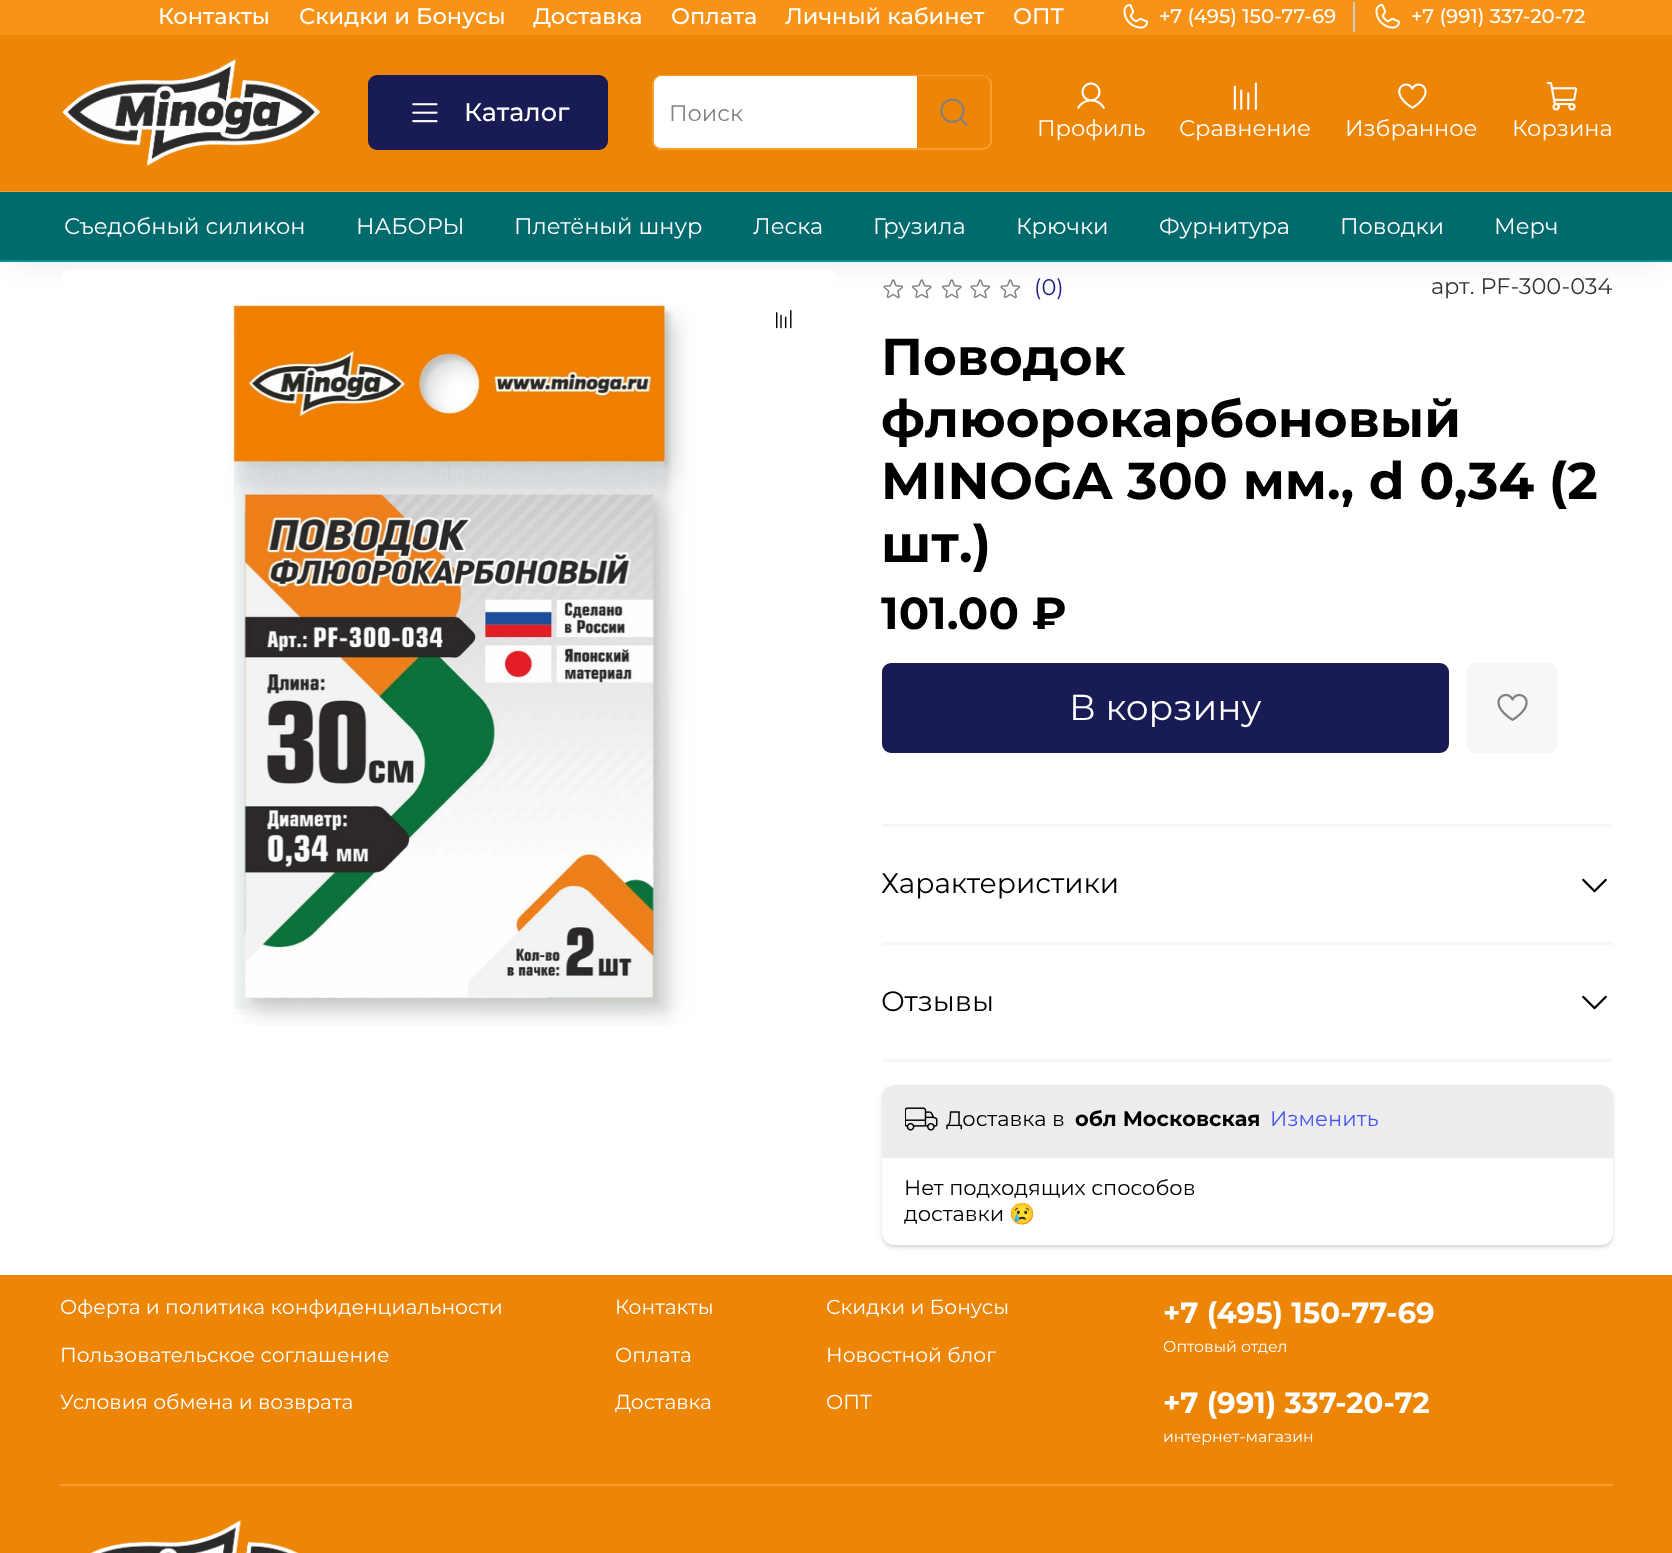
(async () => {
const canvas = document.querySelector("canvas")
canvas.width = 1672
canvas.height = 1553
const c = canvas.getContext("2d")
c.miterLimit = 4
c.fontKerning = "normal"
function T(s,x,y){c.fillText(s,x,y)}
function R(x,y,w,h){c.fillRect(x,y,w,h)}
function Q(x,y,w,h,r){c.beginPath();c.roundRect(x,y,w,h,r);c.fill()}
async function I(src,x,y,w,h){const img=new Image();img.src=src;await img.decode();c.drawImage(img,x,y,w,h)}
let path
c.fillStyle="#fff"
R(0,0,1672,1553)
c.fillStyle="#f89317"
R(0,0,1672,35)
c.font="500 22.5px Montserrat"
c.fillStyle="#fff"
T("Контакты",158,24)
T("Скидки и Бонусы",299,24)
T("Доставка",533,24)
T("Оплата",671,24)
T("Личный кабинет",785,24)
T("ОПТ",1013,24)
c.fillStyle="#ccc"
R(1353,2,2,30)
await I("1.png",1123,3,26,26)
c.font="500 19.75px Montserrat"
c.fillStyle="#fff"
T("+7 (495) 150-77-69",1159,23)
await I("1.png",1375,3,26,26)
T("+7 (991) 337-20-72",1411,23)
c.fillStyle="#ed8507"
R(0,35,1672,156)
c.fillStyle="#f99f31"
R(0,191,1672,1)
await I("2.png",62,59,259,108)
c.fillStyle="#191b54"
Q(368,75,240,75,9)
await I("3.png",412,103,26,20)
c.font="500 25.5px Montserrat"
c.fillStyle="#fff"
T("Каталог",464,121)
c.beginPath()
c.roundRect(653,75,264,75,[9,0,0,9])
c.fill()
c.fillStyle="#f99f31"
path = new Path2D("M662 75h254v75h-254c-5 0-10-4-10-9v-57c0-5 5-9 10-9zm0 1h254v72h-254c-5 0-8-3-8-7v-57c0-4 3-8 8-8z")
c.fill(path,"evenodd")
c.font="22.5px Montserrat"
c.fillStyle="#808080"
T("Поиск",669,121)
c.fillStyle="#f99f31"
path = new Path2D("M916 75h66c5 0 10 4 10 9v57c0 5-5 9-10 9h-66zm0 1h66c5 0 8 4 8 8v57c0 4-3 7-8 7h-66z")
c.fill(path,"evenodd")
await I("4.png",940,98,28,28)
await I("5.png",1077,82,28,27)
c.fillStyle="#fff"
T("Профиль",1037,136)
await I("6.png",1233,82,24,28)
T("Сравнение",1179,136)
await I("7.png",1398,83,29,26)
T("Избранное",1345,136)
await I("8.png",1546,81,31,30)
T("Корзина",1512,136)
await I("11.png",883,279,20,20)
await I("12.png",912,279,20,20)
await I("12.png",942,279,20,20)
await I("11.png",970,279,20,20)
await I("11.png",1000,279,20,20)
c.fillStyle="#0000001a"
c.filter="blur(15px)"
c.beginPath()
c.rect(15,222,1643,39)
c.fill()
c.filter="none"
c.fillStyle="#016a6d"
R(0,192,1672,68)
c.fillStyle="#029196"
R(0,260,1672,2)
c.fillStyle="#fff"
T("Съедобный силикон",64,234)
T("НАБОРЫ",356,234)
T("Плетёный шнур",514,234)
T("Леска",753,234)
T("Грузила",873,234)
T("Крючки",1016,234)
T("Фурнитура",1159,234)
T("Поводки",1340,234)
T("Мерч",1494,234)
await I("9.png",61,270,775,756)
await I("10.png",776,310,16,19)
c.fillStyle="#1a1f8a"
T("(0)",1034,295)
c.fillStyle="#333"
T("арт. PF-300-034",1431,294)
c.font="bold 51.75px Montserrat"
c.fillStyle="#000"
T("Поводок",881,375)
T("флюорокарбоновый",881,437)
T("MINOGA 300 мм., d 0,34 (2",881,499)
T("шт.)",881,562)
c.font="bold 45px Montserrat"
T("101.00 ₽",881,629)
c.fillStyle="#191b54"
Q(882,663,567,90,9)
c.font="36px Montserrat"
c.fillStyle="#fff"
T("В корзину",1069,720)
c.fillStyle="#f7f7f7"
Q(1467,663,90,90,9)
await I("13.png",1497,693,31,28)
R(882,824,731,3)
c.font="28.1px Montserrat"
c.fillStyle="#000"
T("Характеристики",881,893)
await I("14.png",1582,878,25,15)
c.fillStyle="#f7f7f7"
R(882,942,731,3)
R(882,1059,731,3)
c.fillStyle="#000"
T("Отзывы",881,1011)
await I("14.png",1582,995,25,15)
c.save()
path = new Path2D("M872 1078h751v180h-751zm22 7h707c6.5 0 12 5.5 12 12v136c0 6.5-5.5 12-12 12h-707c-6.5 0-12-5.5-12-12v-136c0-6.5 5.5-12 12-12z")
c.clip(path,"evenodd")
c.fillStyle="#0000000d"
c.filter="blur(3px)"
c.beginPath()
c.roundRect(882,1088,731,160,12)
c.fill()
c.filter="none"
c.restore()
c.save()
path = new Path2D("M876 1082h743v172h-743zm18 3h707c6.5 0 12 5.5 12 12v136c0 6.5-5.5 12-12 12h-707c-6.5 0-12-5.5-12-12v-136c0-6.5 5.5-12 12-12z")
c.clip(path,"evenodd")
c.fillStyle="#0000000d"
c.filter="blur(1.5px)"
c.beginPath()
c.roundRect(882,1088,731,160,12)
c.fill()
c.filter="none"
c.restore()
c.save()
path = new Path2D("M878 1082h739v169h-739zm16 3h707c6.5 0 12 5.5 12 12v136c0 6.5-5.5 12-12 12h-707c-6.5 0-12-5.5-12-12v-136c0-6.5 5.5-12 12-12z")
c.clip(path,"evenodd")
c.fillStyle="#0000000d"
c.filter="blur(1px)"
c.beginPath()
c.roundRect(882,1086,731,161,12)
c.fill()
c.filter="none"
c.restore()
c.fillStyle="#ededed"
c.beginPath()
c.roundRect(882,1085,731,73,[12,12,0,0])
c.fill()
await I("15.png",905,1107,33,24)
c.font="21px Montserrat"
c.fillStyle="#000"
T("Доставка в",946,1126)
c.font="bold 21px Montserrat"
T("обл Московская",1075,1126)
c.font="21px Montserrat"
c.fillStyle="#4657ef"
T("Изменить",1270,1126)
c.fillStyle="#000"
T("Нет подходящих способов",904,1195)
T("доставки",904,1221)
c.font="21px Noto Color Emoji"
T("😢",1009,1221)
c.fillStyle="#ed8507"
R(0,1275,1672,278)
c.font="20.25px Montserrat"
c.fillStyle="#fff"
T("Оферта и политика конфиденциальности",60,1314)
T("Пользовательское соглашение",60,1362)
T("Условия обмена и возврата",60,1409)
T("Контакты",615,1314)
T("Оплата",615,1362)
T("Доставка",615,1409)
T("Скидки и Бонусы",826,1314)
T("Новостной блог",826,1362)
T("ОПТ",826,1409)
c.font="bold 29.25px Montserrat"
T("+7 (495) 150-77-69",1163,1323)
c.font="15.75px Montserrat"
T("Оптовый отдел",1163,1352)
c.font="bold 29.25px Montserrat"
T("+7 (991) 337-20-72",1163,1413)
c.font="15.75px Montserrat"
T("интернет-магазин",1163,1442)
c.fillStyle="#f99f31"
R(60,1484,1553,2)
await I("16.png",90,1520,209,33)
})()
